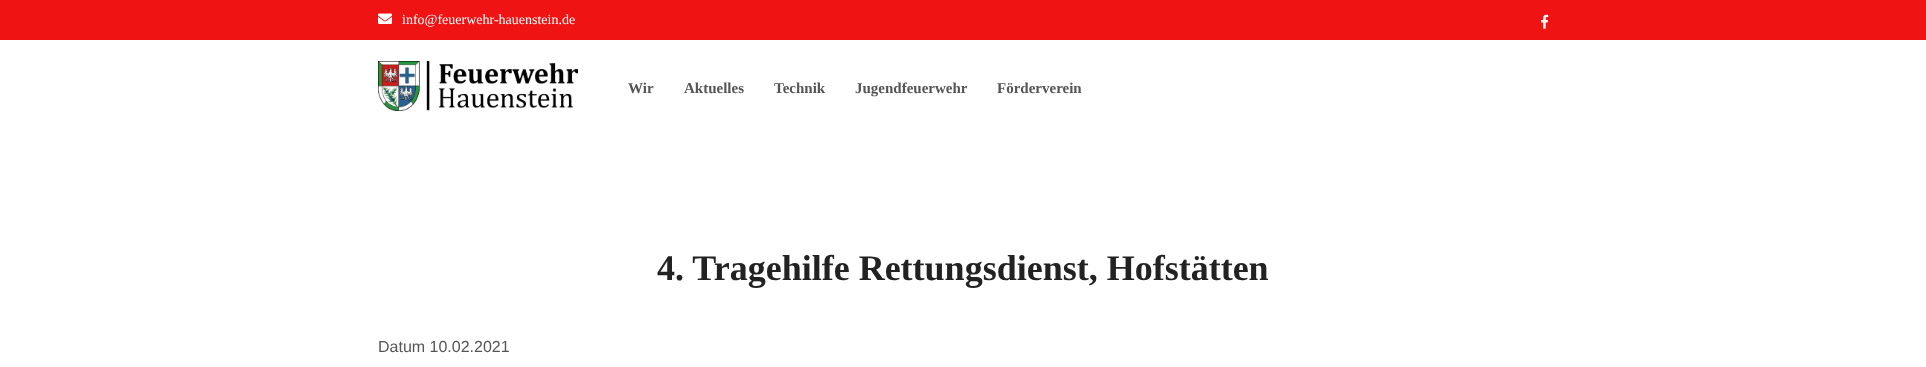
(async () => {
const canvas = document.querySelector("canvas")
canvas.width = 1926
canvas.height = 367
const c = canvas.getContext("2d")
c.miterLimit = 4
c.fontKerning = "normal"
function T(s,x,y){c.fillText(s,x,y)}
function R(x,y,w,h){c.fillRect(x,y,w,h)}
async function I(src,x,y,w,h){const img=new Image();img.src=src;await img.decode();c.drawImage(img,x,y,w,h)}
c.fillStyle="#fff"
R(0,0,1926,367)
c.fillStyle="#f01313"
R(0,0,1926,40)
await I("1.png",378,13,14,11)
c.font="14px Liberation Serif"
c.fillStyle="#fff"
T("info@feuerwehr-hauenstein.de",402,24)
await I("2.png",1541,14,8,15)
await I("3.png",378,61,200,50)
c.font="bold 15px Liberation Serif"
c.fillStyle="#555"
T("Wir",628,93)
T("Aktuelles",684,93)
T("Technik",774,93)
T("Jugendfeuerwehr",855,93)
T("Förderverein",997,93)
c.font="bold 36px Liberation Serif"
c.fillStyle="#222"
T("4. Tragehilfe Rettungsdienst, Hofstätten",657,280)
c.font="16px Liberation Sans"
c.fillStyle="#555"
T("Datum 10.02.2021",378,352)
})()
